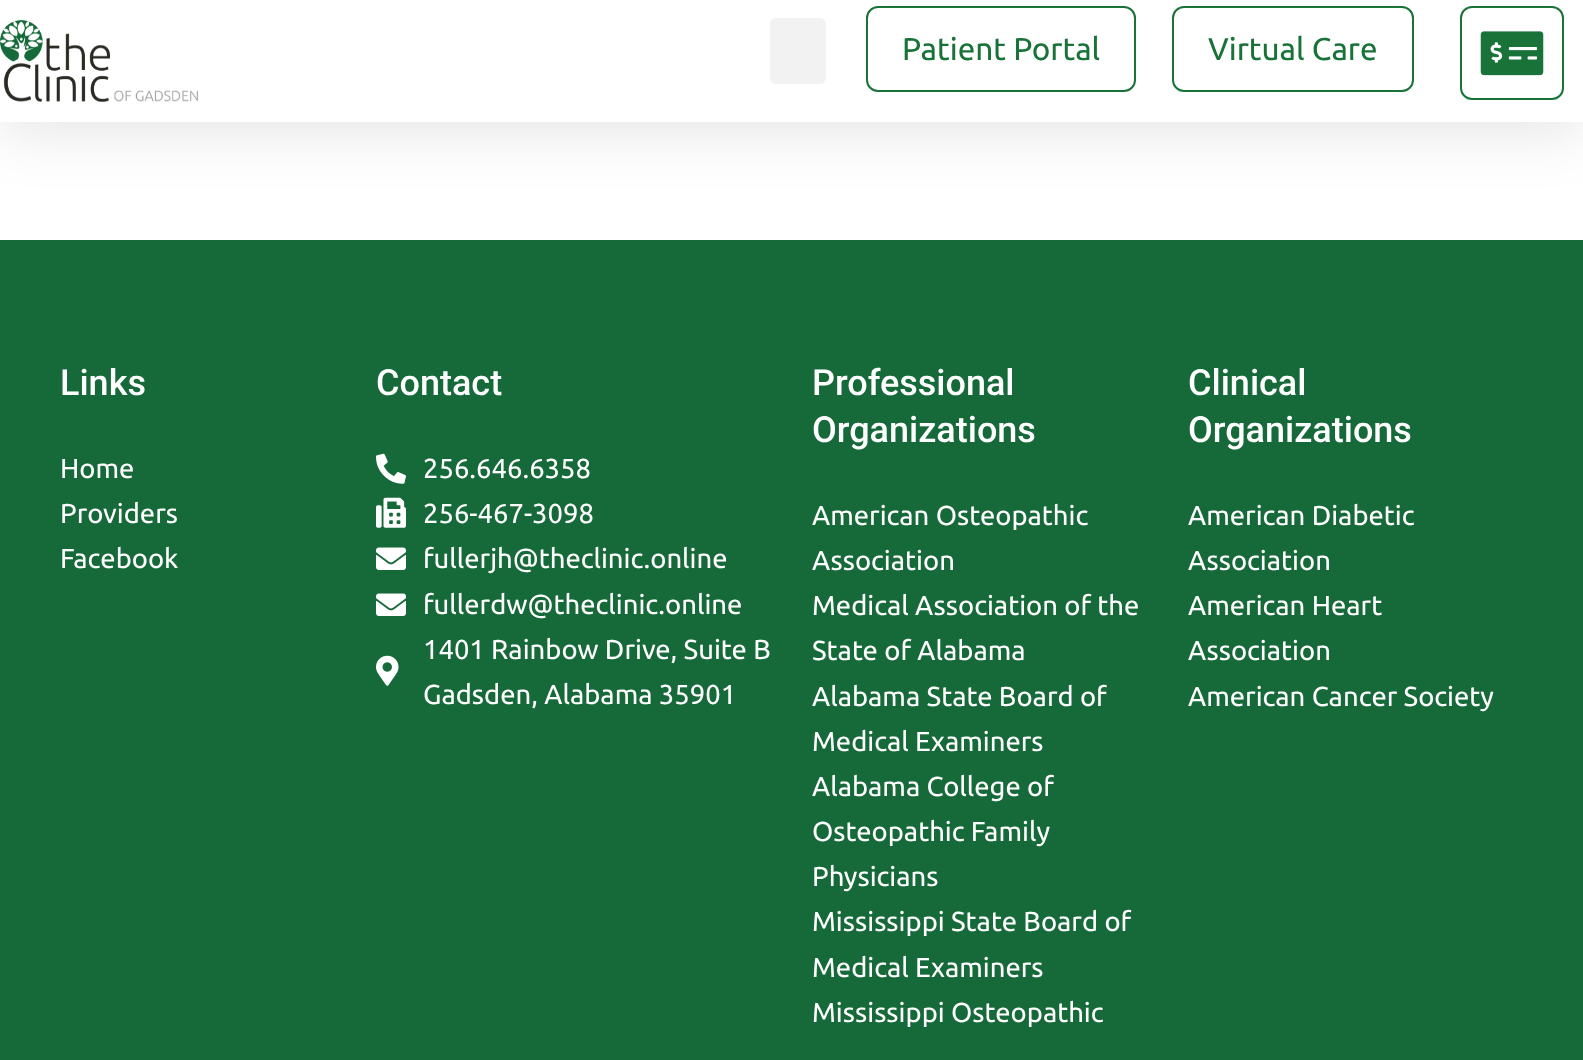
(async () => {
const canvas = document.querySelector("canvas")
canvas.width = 1583
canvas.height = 1060
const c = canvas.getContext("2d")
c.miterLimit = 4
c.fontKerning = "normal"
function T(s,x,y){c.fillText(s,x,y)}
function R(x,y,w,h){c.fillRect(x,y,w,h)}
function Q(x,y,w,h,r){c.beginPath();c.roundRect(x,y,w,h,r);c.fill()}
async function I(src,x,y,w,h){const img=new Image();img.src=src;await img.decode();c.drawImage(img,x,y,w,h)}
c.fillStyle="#fff"
R(0,0,1583,1060)
c.fillStyle="#0000001a"
c.filter="blur(30px)"
c.beginPath()
c.rect(0,10,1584,122)
c.fill()
c.filter="none"
c.fillStyle="#fff"
R(0,0,1583,122)
await I("1.png",0,20,198,82)
c.fillStyle="#f2f2f2"
Q(770,18,56,66,6)
c.beginPath()
c.roundRect(867,7,268,84,11)
c.strokeStyle="#197339"
c.lineWidth=2
c.stroke()
c.font="31.5px Ubuntu"
c.fillStyle="#197339"
T("Patient Portal",902,60)
c.beginPath()
c.roundRect(1173,7,240,84,11)
c.stroke()
T("Virtual Care",1208,60)
c.beginPath()
c.roundRect(1461,7,102,92,11)
c.stroke()
await I("2.png",1480,31,64,45)
c.fillStyle="#166938"
R(0,240,1583,820)
c.font="500 36px Roboto"
c.fillStyle="#fff"
T("Links",60,395)
c.font="27.4px Ubuntu"
T("Home",60,478)
T("Providers",60,523)
T("Facebook",60,568)
c.font="500 36px Roboto"
T("Contact",376,395)
await I("3.png",376,453,30,31)
c.font="27.4px Ubuntu"
T("256.646.6358",423,478)
await I("4.png",376,497,30,31)
T("256-467-3098",423,523)
await I("5.png",376,547,30,23)
T("fullerjh@theclinic.online",423,568)
await I("5.png",376,593,30,23)
T("fullerdw@theclinic.online",423,614)
await I("6.png",376,655,23,31)
T("1401 Rainbow Drive, Suite B",423,659)
T("Gadsden, Alabama 35901",423,704)
c.font="500 36px Roboto"
T("Professional",812,395)
T("Organizations",812,442)
c.font="27.4px Ubuntu"
T("American Osteopathic",812,525)
T("Association",812,570)
T("Medical Association of the",812,615)
T("State of Alabama",812,660)
T("Alabama State Board of",812,706)
T("Medical Examiners",812,751)
T("Alabama College of",812,796)
T("Osteopathic Family",812,841)
T("Physicians",812,886)
T("Mississippi State Board of",812,931)
T("Medical Examiners",812,977)
T("Mississippi Osteopathic",812,1022)
c.font="500 36px Roboto"
T("Clinical",1188,395)
T("Organizations",1188,442)
c.font="27.4px Ubuntu"
T("American Diabetic",1188,525)
T("Association",1188,570)
T("American Heart",1188,615)
T("Association",1188,660)
T("American Cancer Society",1188,706)
})()
